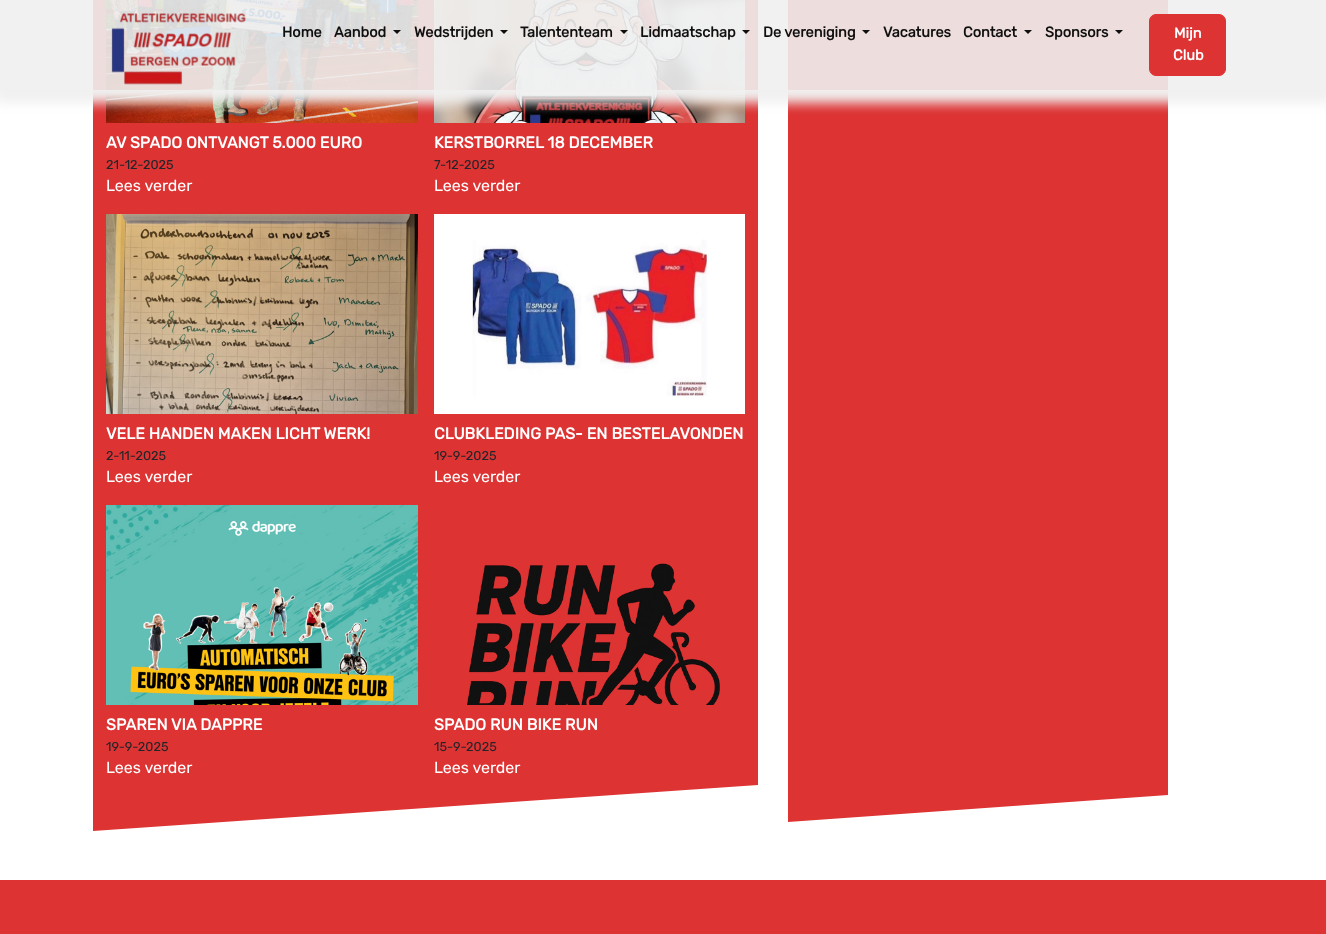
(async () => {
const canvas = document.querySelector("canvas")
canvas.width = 1326
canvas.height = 934
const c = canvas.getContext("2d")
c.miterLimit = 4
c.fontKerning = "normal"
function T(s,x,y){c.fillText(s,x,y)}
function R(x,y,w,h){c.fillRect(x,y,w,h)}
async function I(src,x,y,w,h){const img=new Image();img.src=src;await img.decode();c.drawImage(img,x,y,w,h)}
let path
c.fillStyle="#fff"
R(0,0,1326,934)
c.fillStyle="#d33"
path = new Path2D("M93-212l665-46v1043l-665 46z")
c.fill(path)
await I("2.png",106,0,312,123)
await I("3.png",434,0,311,123)
path = new Path2D("M788-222l380-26v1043l-380 27z")
c.fill(path)
c.save()
c.beginPath()
c.rect(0,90,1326,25)
c.clip()
c.fillStyle="#f0f0f0"
c.filter="blur(6px)"
c.beginPath()
c.rect(-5,3,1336,100)
c.fill()
c.filter="none"
c.restore()
c.fillStyle="#f0f0f0e6"
R(0,0,1326,90)
await I("1.png",111,13,135,72)
c.font="bold 14.5px Rubik"
c.fillStyle="#0f0f0f"
T("Home",282,37)
T("Aanbod",334,37)
path = new Path2D("M393 30h8l-4 4z")
c.fill(path)
T("Wedstrijden",414,37)
path = new Path2D("M500 30h8l-4 4z")
c.fill(path)
T("Talententeam",520,37)
path = new Path2D("M620 30h8l-4 4z")
c.fill(path)
T("Lidmaatschap",640,37)
path = new Path2D("M742 30h8l-4 4z")
c.fill(path)
T("De vereniging",763,37)
path = new Path2D("M862 30h8l-4 4z")
c.fill(path)
T("Vacatures",883,37)
T("Contact",963,37)
path = new Path2D("M1024 30h8l-4 4z")
c.fill(path)
T("Sponsors",1045,37)
path = new Path2D("M1115 30h8l-4 4z")
c.fill(path)
c.fillStyle="#d33"
c.beginPath()
c.roundRect(1149.5,14.5,76,61,6.5)
c.fill()
c.strokeStyle="#d33"
c.stroke()
c.fillStyle="#fff"
T("Mijn",1174,38)
T("Club",1173,60)
c.font="bold 16px Rubik"
T("AV SPADO ONTVANGT 5.000 EURO",106,148)
c.font="300 12.75px Rubik"
c.fillStyle="#212529"
T("21-12-2025",106,169)
c.font="300 16px Rubik"
c.fillStyle="#fff"
T("Lees verder",106,191)
c.font="bold 16px Rubik"
T("KERSTBORREL 18 DECEMBER",434,148)
c.font="300 12.75px Rubik"
c.fillStyle="#212529"
T("7-12-2025",434,169)
c.font="300 16px Rubik"
c.fillStyle="#fff"
T("Lees verder",434,191)
await I("4.png",106,214,312,200)
c.font="bold 16px Rubik"
T("VELE HANDEN MAKEN LICHT WERK!",106,439)
c.font="300 12.75px Rubik"
c.fillStyle="#212529"
T("2-11-2025",106,460)
c.font="300 16px Rubik"
c.fillStyle="#fff"
T("Lees verder",106,482)
await I("5.png",434,214,311,200)
c.font="bold 16px Rubik"
T("CLUBKLEDING PAS- EN BESTELAVONDEN",434,439)
c.font="300 12.75px Rubik"
c.fillStyle="#212529"
T("19-9-2025",434,460)
c.font="300 16px Rubik"
c.fillStyle="#fff"
T("Lees verder",434,482)
await I("6.png",106,505,312,200)
c.font="bold 16px Rubik"
T("SPAREN VIA DAPPRE",106,730)
c.font="300 12.75px Rubik"
c.fillStyle="#212529"
T("19-9-2025",106,751)
c.font="300 16px Rubik"
c.fillStyle="#fff"
T("Lees verder",106,773)
await I("7.png",467,563,253,142)
c.font="bold 16px Rubik"
T("SPADO RUN BIKE RUN",434,730)
c.font="300 12.75px Rubik"
c.fillStyle="#212529"
T("15-9-2025",434,751)
c.font="300 16px Rubik"
c.fillStyle="#fff"
T("Lees verder",434,773)
c.fillStyle="#d33"
R(0,880,1326,54)
})()
